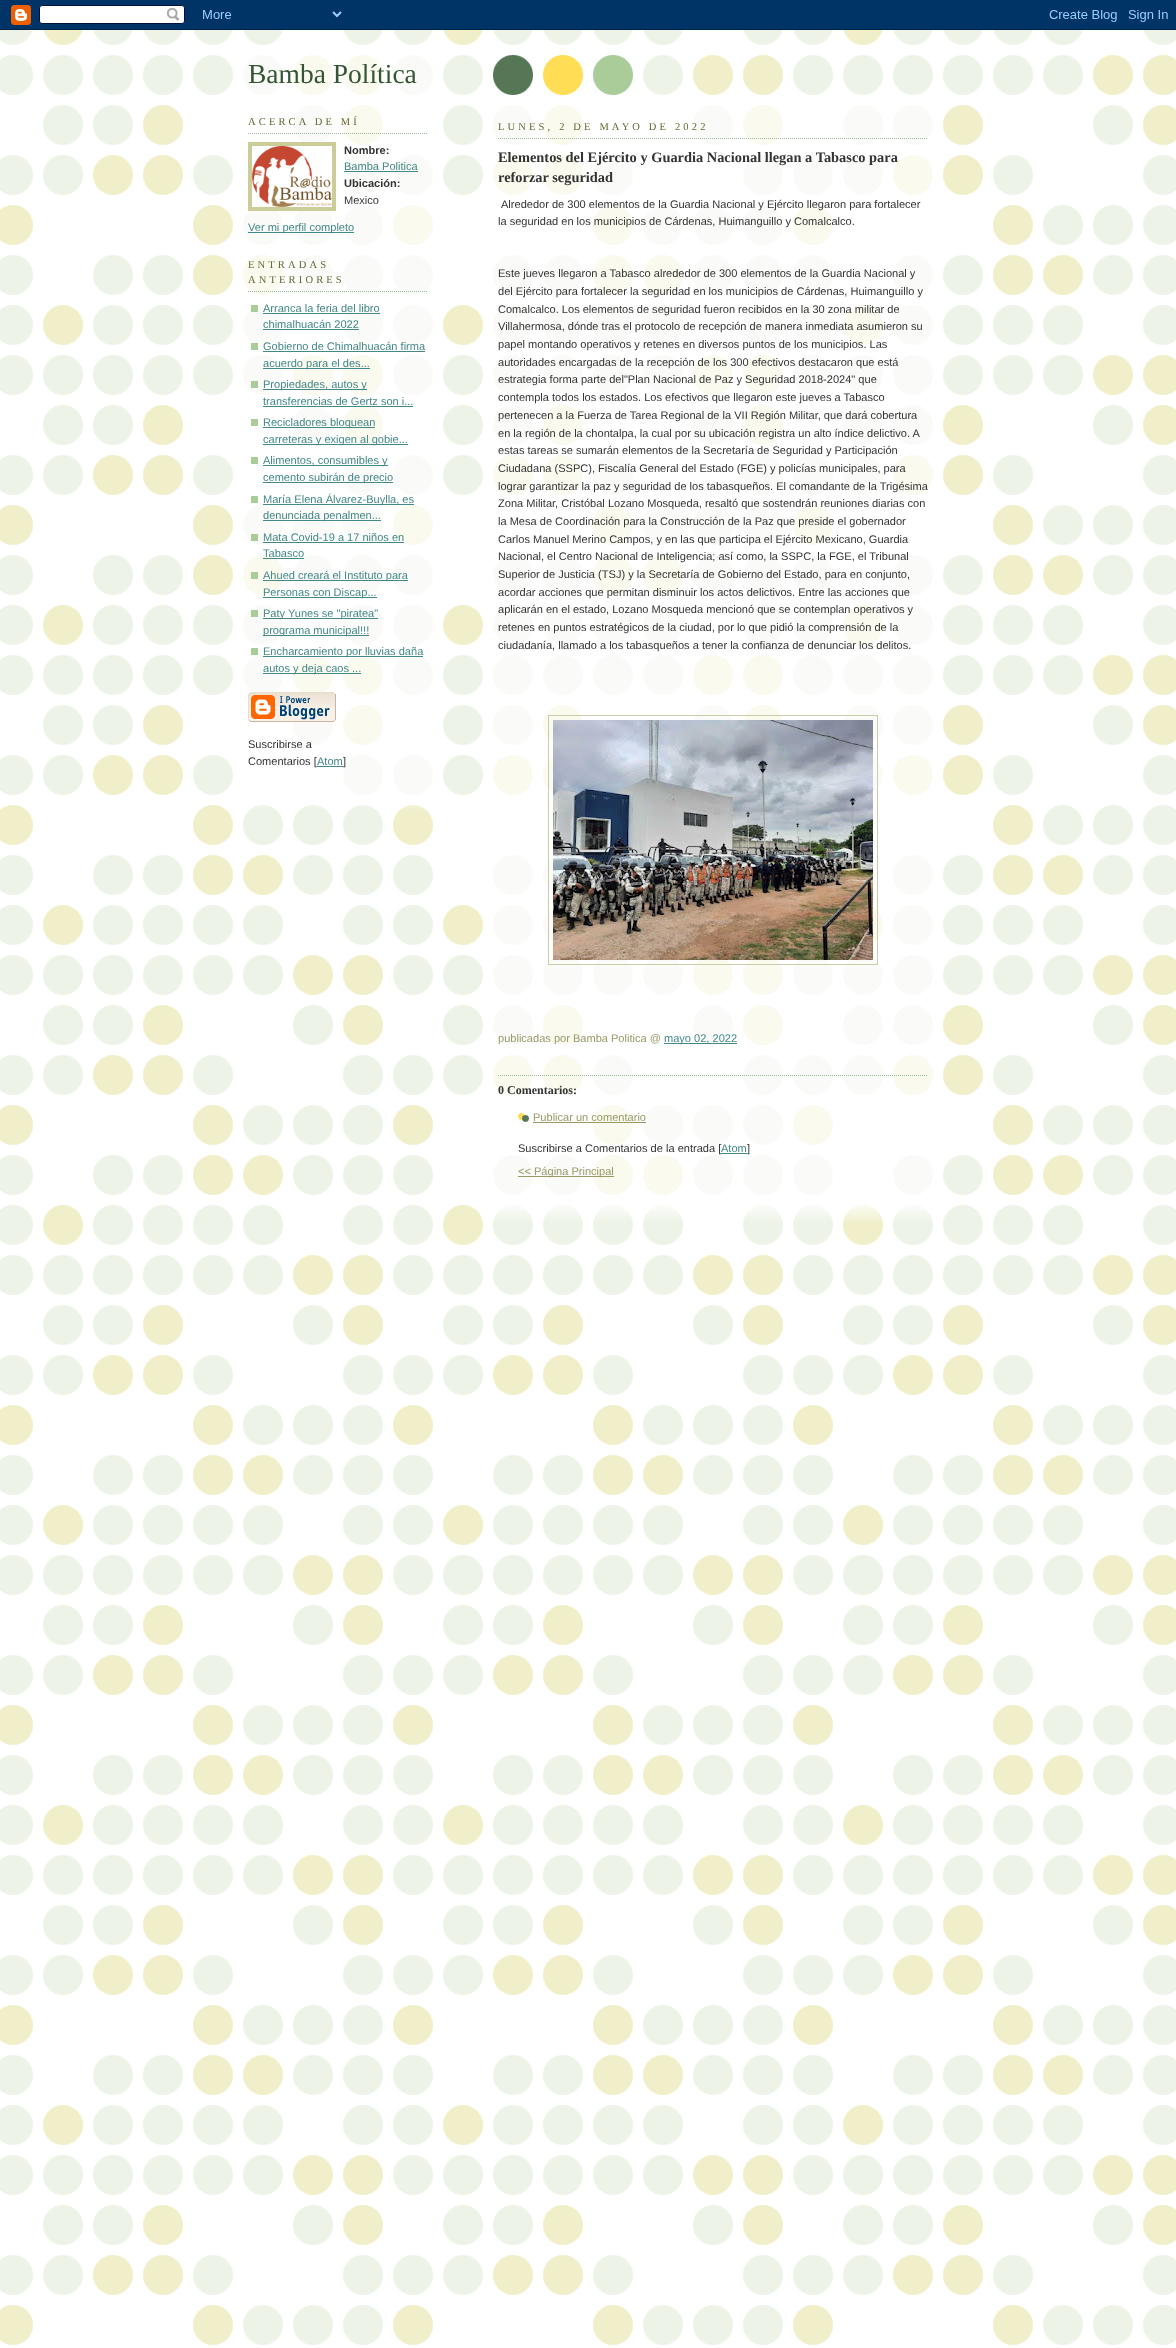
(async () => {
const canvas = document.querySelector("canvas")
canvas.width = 1176
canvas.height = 2348
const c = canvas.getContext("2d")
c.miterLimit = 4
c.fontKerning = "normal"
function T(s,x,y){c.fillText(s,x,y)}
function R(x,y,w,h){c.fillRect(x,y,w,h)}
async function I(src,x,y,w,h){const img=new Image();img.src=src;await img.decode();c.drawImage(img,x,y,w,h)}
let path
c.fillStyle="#fff"
R(0,0,1176,2348)
await I("1.png",0,30,1176,2315)
await I("2.png",0,0,1176,30)
await I("3.png",492,55,141,41)
await I("4.png",257,793,168,17)
await I("5.png",243,55,190,738)
c.font="27.5px Liberation Serif"
c.fillStyle="#353"
T("Bamba Política",248,83)
path = new Path2D("M248 133.5h180")
c.strokeStyle="#9b9"
c.setLineDash([1,1])
c.stroke(path)
c.letterSpacing="3.15px"
c.font="10.5px Liberation Serif"
c.fillStyle="#663"
T("ACERCA DE MÍ",248,125)
c.strokeStyle="#cc9"
c.lineWidth=4
c.setLineDash([])
c.strokeRect(250,144,84,65)
await I("6.png",252,146,80,61)
c.letterSpacing="0px"
c.font="bold 11.05px Liberation Sans"
c.fillStyle="#333"
T("Nombre:",344,154)
c.font="11.05px Liberation Sans"
c.fillStyle="#488"
T("Bamba Politica",344,170)
R(344,171,74,1)
c.font="bold 11.05px Liberation Sans"
c.fillStyle="#333"
T("Ubicación:",344,187)
c.font="11.05px Liberation Sans"
T("Mexico",344,204)
c.fillStyle="#488"
R(248,232,106,1)
T("Ver mi perfil completo",248,231)
path = new Path2D("M248 291.5h180")
c.strokeStyle="#9b9"
c.lineWidth=1
c.setLineDash([1,1])
c.stroke(path)
c.letterSpacing="3.15px"
c.font="10.5px Liberation Serif"
c.fillStyle="#663"
T("ENTRADAS",248,268)
T("ANTERIORES",248,283)
c.fillStyle="#ac9"
R(251,305,7,7)
c.letterSpacing="0px"
c.font="11.05px Liberation Sans"
c.fillStyle="#488"
T("Arranca la feria del libro",263,312)
R(263,313,117,1)
T("chimalhuacán 2022",263,328)
R(263,329,96,1)
c.fillStyle="#ac9"
R(251,343,7,7)
c.fillStyle="#488"
T("Gobierno de Chimalhuacán firma",263,350)
R(263,351,162,1)
R(263,368,107,1)
T("acuerdo para el des...",263,367)
c.fillStyle="#ac9"
R(251,381,7,7)
c.fillStyle="#488"
R(263,389,104,1)
T("Propiedades, autos y",263,388)
T("transferencias de Gertz son i...",263,405)
R(263,406,150,1)
c.fillStyle="#ac9"
R(251,419,7,7)
c.fillStyle="#488"
R(263,427,112,1)
T("Recicladores bloquean",263,426)
R(263,444,145,1)
T("carreteras y exigen al gobie...",263,443)
c.fillStyle="#ac9"
R(251,457,7,7)
c.fillStyle="#488"
R(263,465,125,1)
T("Alimentos, consumibles y",263,464)
R(263,482,130,1)
T("cemento subirán de precio",263,481)
c.fillStyle="#ac9"
R(251,496,7,7)
c.fillStyle="#488"
R(263,504,151,1)
T("María Elena Álvarez-Buylla, es",263,503)
R(263,520,118,1)
T("denunciada penalmen...",263,519)
c.fillStyle="#ac9"
R(251,534,7,7)
c.fillStyle="#488"
T("Mata Covid-19 a 17 niños en",263,541)
R(263,542,141,1)
T("Tabasco",263,557)
R(263,558,41,1)
c.fillStyle="#ac9"
R(251,572,7,7)
c.fillStyle="#488"
R(263,580,145,1)
T("Ahued creará el Instituto para",263,579)
R(263,597,114,1)
T("Personas con Discap...",263,596)
c.fillStyle="#ac9"
R(251,610,7,7)
c.fillStyle="#488"
R(263,618,115,1)
T("Paty Yunes se \"piratea\"",263,617)
R(263,635,106,1)
T("programa municipal!!!",263,634)
c.fillStyle="#ac9"
R(251,648,7,7)
c.fillStyle="#488"
R(263,656,160,1)
T("Encharcamiento por lluvias daña",263,655)
R(263,673,98,1)
T("autos y deja caos ...",263,672)
await I("7.png",248,692,88,30)
c.fillStyle="#333"
T("Suscribirse a",248,748)
T("Comentarios [",248,765)
c.fillStyle="#488"
T("Atom",317,765)
R(317,766,26,1)
c.fillStyle="#333"
T("]",343,765)
await I("8.png",494,1206,438,17)
await I("9.png",493,105,440,1101)
path = new Path2D("M498 138.5h430")
c.stroke(path)
c.letterSpacing="3.15px"
c.font="10.5px Liberation Serif"
c.fillStyle="#663"
T("LUNES, 2 DE MAYO DE 2022",498,130)
c.letterSpacing="0px"
c.font="bold 14.4px Liberation Serif"
c.fillStyle="#333"
T("Elementos del Ejército y Guardia Nacional llegan a Tabasco para",498,162)
T("reforzar seguridad",498,182)
c.font="11.05px Liberation Sans"
T("Alrededor de 300 elementos de la Guardia Nacional y Ejército llegaron para fortalecer",501,208)
T("la seguridad en los municipios de Cárdenas, Huimanguillo y Comalcalco.",498,225)
T("Este jueves llegaron a Tabasco alrededor de 300 elementos de la Guardia Nacional y",498,277)
T("del Ejército para fortalecer la seguridad en los municipios de Cárdenas, Huimanguillo y",498,295)
T("Comalcalco. Los elementos de seguridad fueron recibidos en la 30 zona militar de",498,313)
T("Villahermosa, dónde tras el protocolo de recepción de manera inmediata asumieron su",498,330)
T("papel montando operativos y retenes en diversos puntos de los municipios. Las",498,348)
T("autoridades encargadas de la recepción de los 300 efectivos destacaron que está",498,366)
T("estrategia forma parte del\"Plan Nacional de Paz y Seguridad 2018-2024\" que",498,383)
T("contempla todos los estados. Los efectivos que llegaron este jueves a Tabasco",498,401)
T("pertenecen a la Fuerza de Tarea Regional de la VII Región Militar, que dará cobertura",498,419)
T("en la región de la chontalpa, la cual por su ubicación registra un alto índice delictivo. A",498,437)
T("estas tareas se sumarán elementos de la Secretaría de Seguridad y Participación",498,454)
T("Ciudadana (SSPC), Fiscalía General del Estado (FGE) y policías municipales, para",498,472)
T("lograr garantizar la paz y seguridad de los tabasqueños. El comandante de la Trigésima",498,490)
T("Zona Militar, Cristóbal Lozano Mosqueda, resaltó que sostendrán reuniones diarias con",498,507)
T("la Mesa de Coordinación para la Construcción de la Paz que preside el gobernador",498,525)
T("Carlos Manuel Merino Campos, y en las que participa el Ejército Mexicano, Guardia",498,543)
T("Nacional, el Centro Nacional de Inteligencia; así como, la SSPC, la FGE, el Tribunal",498,560)
T("Superior de Justicia (TSJ) y la Secretaría de Gobierno del Estado, para en conjunto,",498,578)
T("acordar acciones que permitan disminuir los actos delictivos. Entre las acciones que",498,596)
T("aplicarán en el estado, Lozano Mosqueda mencionó que se contemplan operativos y",498,613)
T("retenes en puntos estratégicos de la ciudad, por lo que pidió la comprensión de la",498,631)
T("ciudadanía, llamado a los tabasqueños a tener la confianza de denunciar los delitos.",498,649)
c.strokeStyle="#cca"
c.setLineDash([])
c.strokeRect(548.5,715.5,329,249)
await I("10.png",553,720,320,240)
c.fillStyle="#996"
T("publicadas por Bamba Politica @",498,1042)
c.fillStyle="#488"
R(664,1043,73,1)
T("mayo 02, 2022",664,1042)
path = new Path2D("M498 1075.5h430")
c.strokeStyle="#9b9"
c.setLineDash([1,1])
c.stroke(path)
c.font="bold 12px Liberation Serif"
c.fillStyle="#333"
T("0 Comentarios:",498,1094)
await I("11.png",518,1113,11,9)
c.font="11.05px Liberation Sans"
c.fillStyle="#996"
T("Publicar un comentario",533,1121)
R(533,1122,113,1)
c.fillStyle="#333"
T("Suscribirse a Comentarios de la entrada [",518,1152)
c.fillStyle="#488"
T("Atom",721,1152)
R(721,1153,26,1)
c.fillStyle="#333"
T("]",747,1152)
c.fillStyle="#996"
R(518,1176,96,1)
T("<< Página Principal",518,1175)
})()
